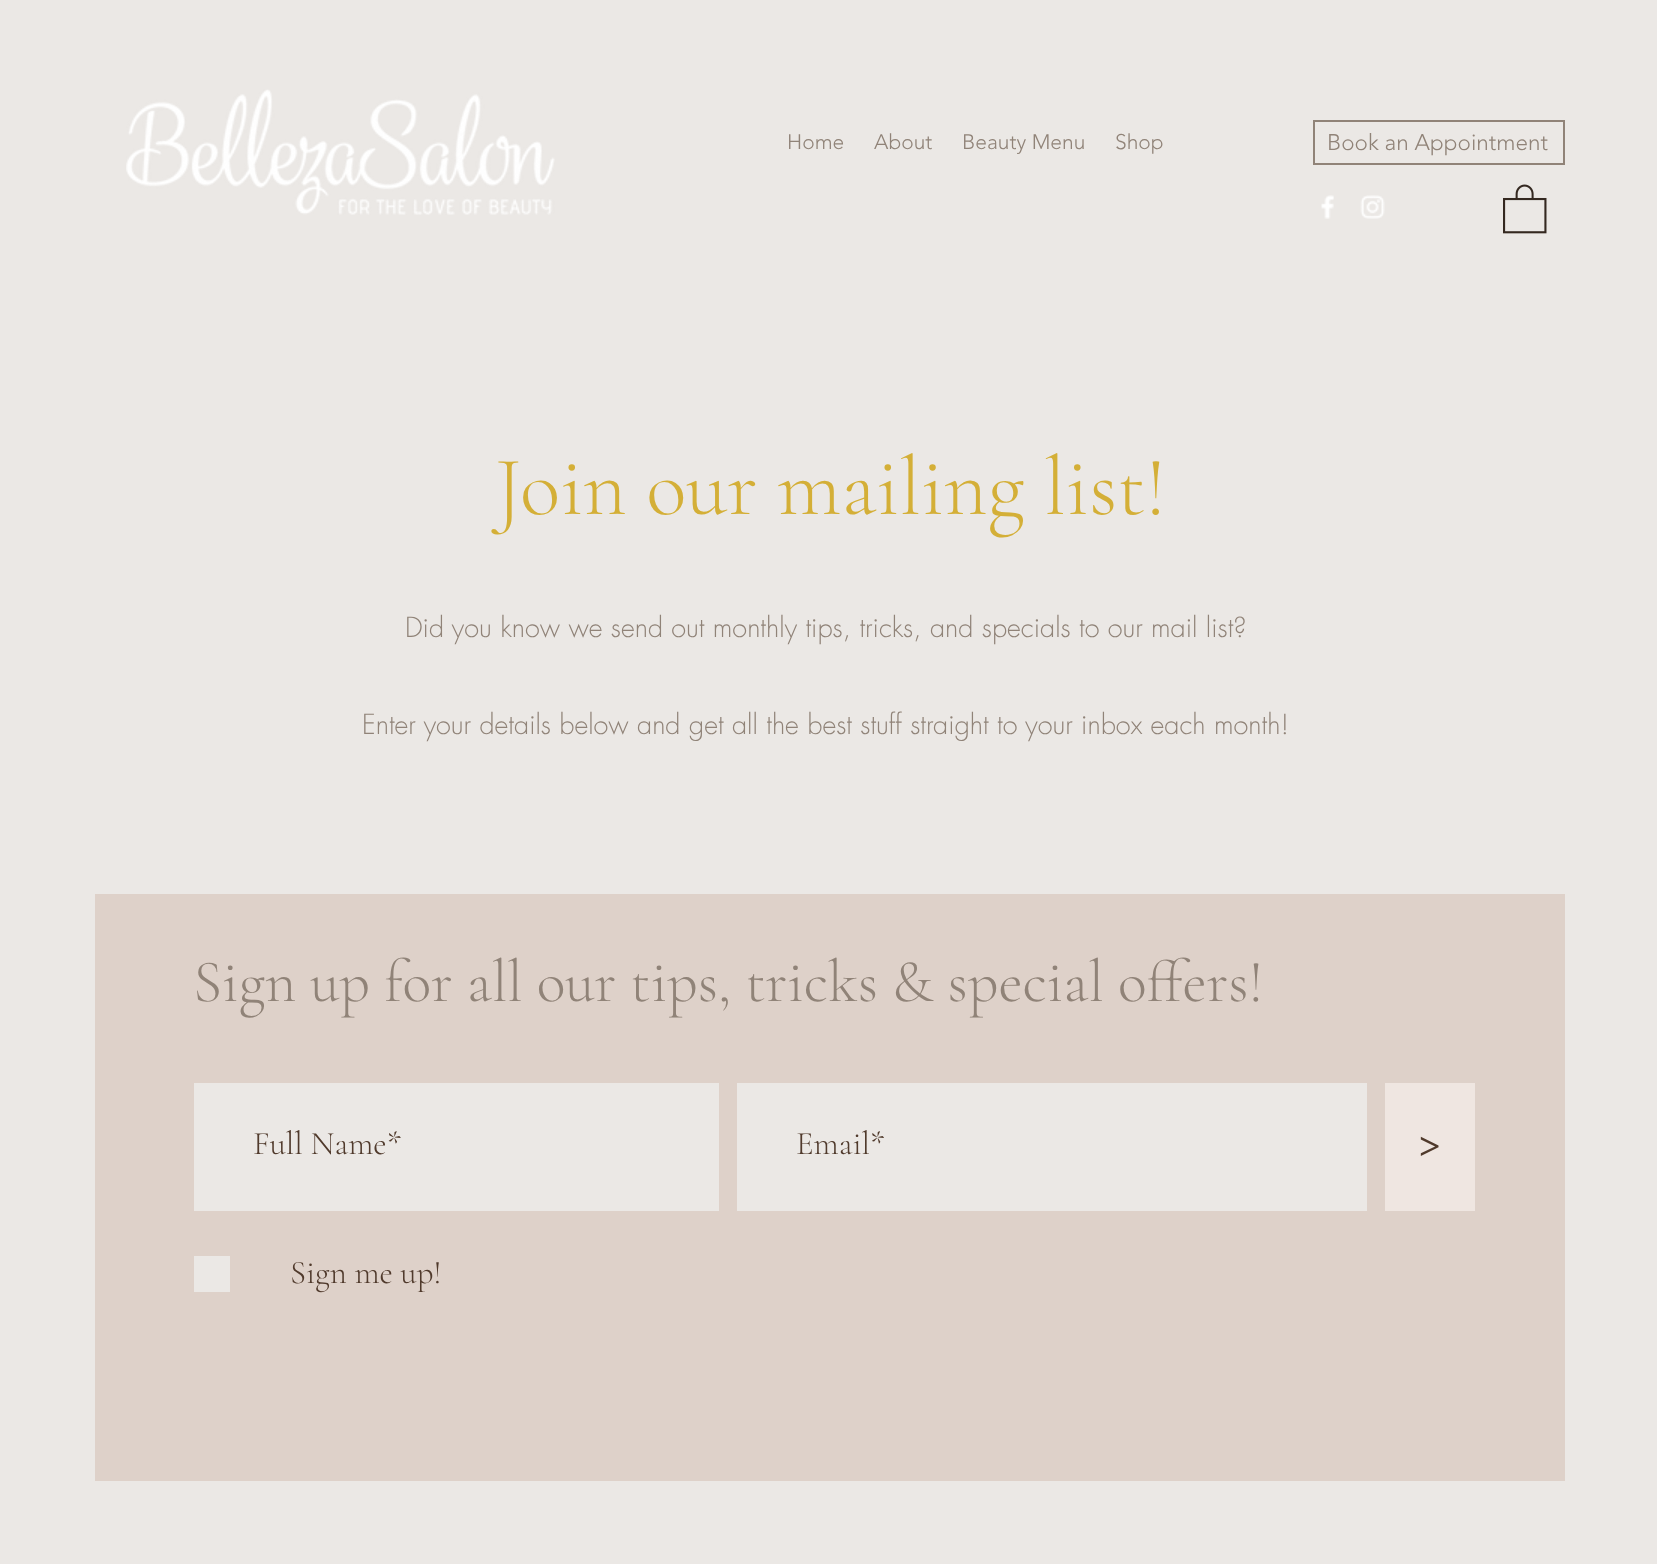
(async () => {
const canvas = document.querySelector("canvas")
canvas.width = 1657
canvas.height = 1564
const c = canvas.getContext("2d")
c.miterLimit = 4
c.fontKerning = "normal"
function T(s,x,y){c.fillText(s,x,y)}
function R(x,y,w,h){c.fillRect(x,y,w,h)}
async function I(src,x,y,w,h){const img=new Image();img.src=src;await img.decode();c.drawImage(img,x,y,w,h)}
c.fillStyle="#ebe8e5"
R(0,0,1657,1564)
await I("1.png",126,89,429,126)
c.font="300 21px 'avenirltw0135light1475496'"
c.fillStyle="#908378"
T("Home",787,149)
T("About",874,149)
T("Beauty Menu",962,149)
T("Shop",1115,149)
c.strokeStyle="#908378"
c.lineWidth=2
c.strokeRect(1314,121,250,43)
c.font="300 22.5px 'avenirltw0135light1475496'"
T("Book an Appointment",1327,150)
await I("2.png",1321,195,13,24)
await I("3.png",1360,195,25,24)
await I("4.png",1503,184,44,50)
c.font="300 84px Cormorant Garamond"
c.fillStyle="#d4af37"
T("Join our mailing list!",495,514)
c.font="300 27px futura"
c.fillStyle="#908378"
T("Did you know we send out monthly tips, tricks, and specials to our mail list?",405,637)
T("Enter your details below and get all the best stuff straight to your inbox each month!",362,734)
c.fillStyle="#ded1c9"
R(95,894,1470,587)
c.font="300 60px Cormorant Garamond"
c.fillStyle="#908378"
T("Sign up for all our tips, tricks & special offers!",193,1001)
c.fillStyle="#ebe8e5"
R(194,1083,525,128)
c.font="300 33px Cormorant Garamond"
c.fillStyle="#503a2c"
T("Full Name*",253,1154)
c.fillStyle="#ebe8e5"
R(737,1083,630,128)
c.fillStyle="#503a2c"
T("Email*",796,1154)
c.fillStyle="#efe6e1"
R(1385,1083,90,128)
c.font="italic bold 38px Liberation Serif"
c.fillStyle="#503a2c"
T(">",1418,1159)
c.fillStyle="#ebe8e5"
R(194,1256,36,36)
c.font="300 33px Cormorant Garamond"
c.fillStyle="#503a2c"
T("Sign me up!",290,1283)
})()
